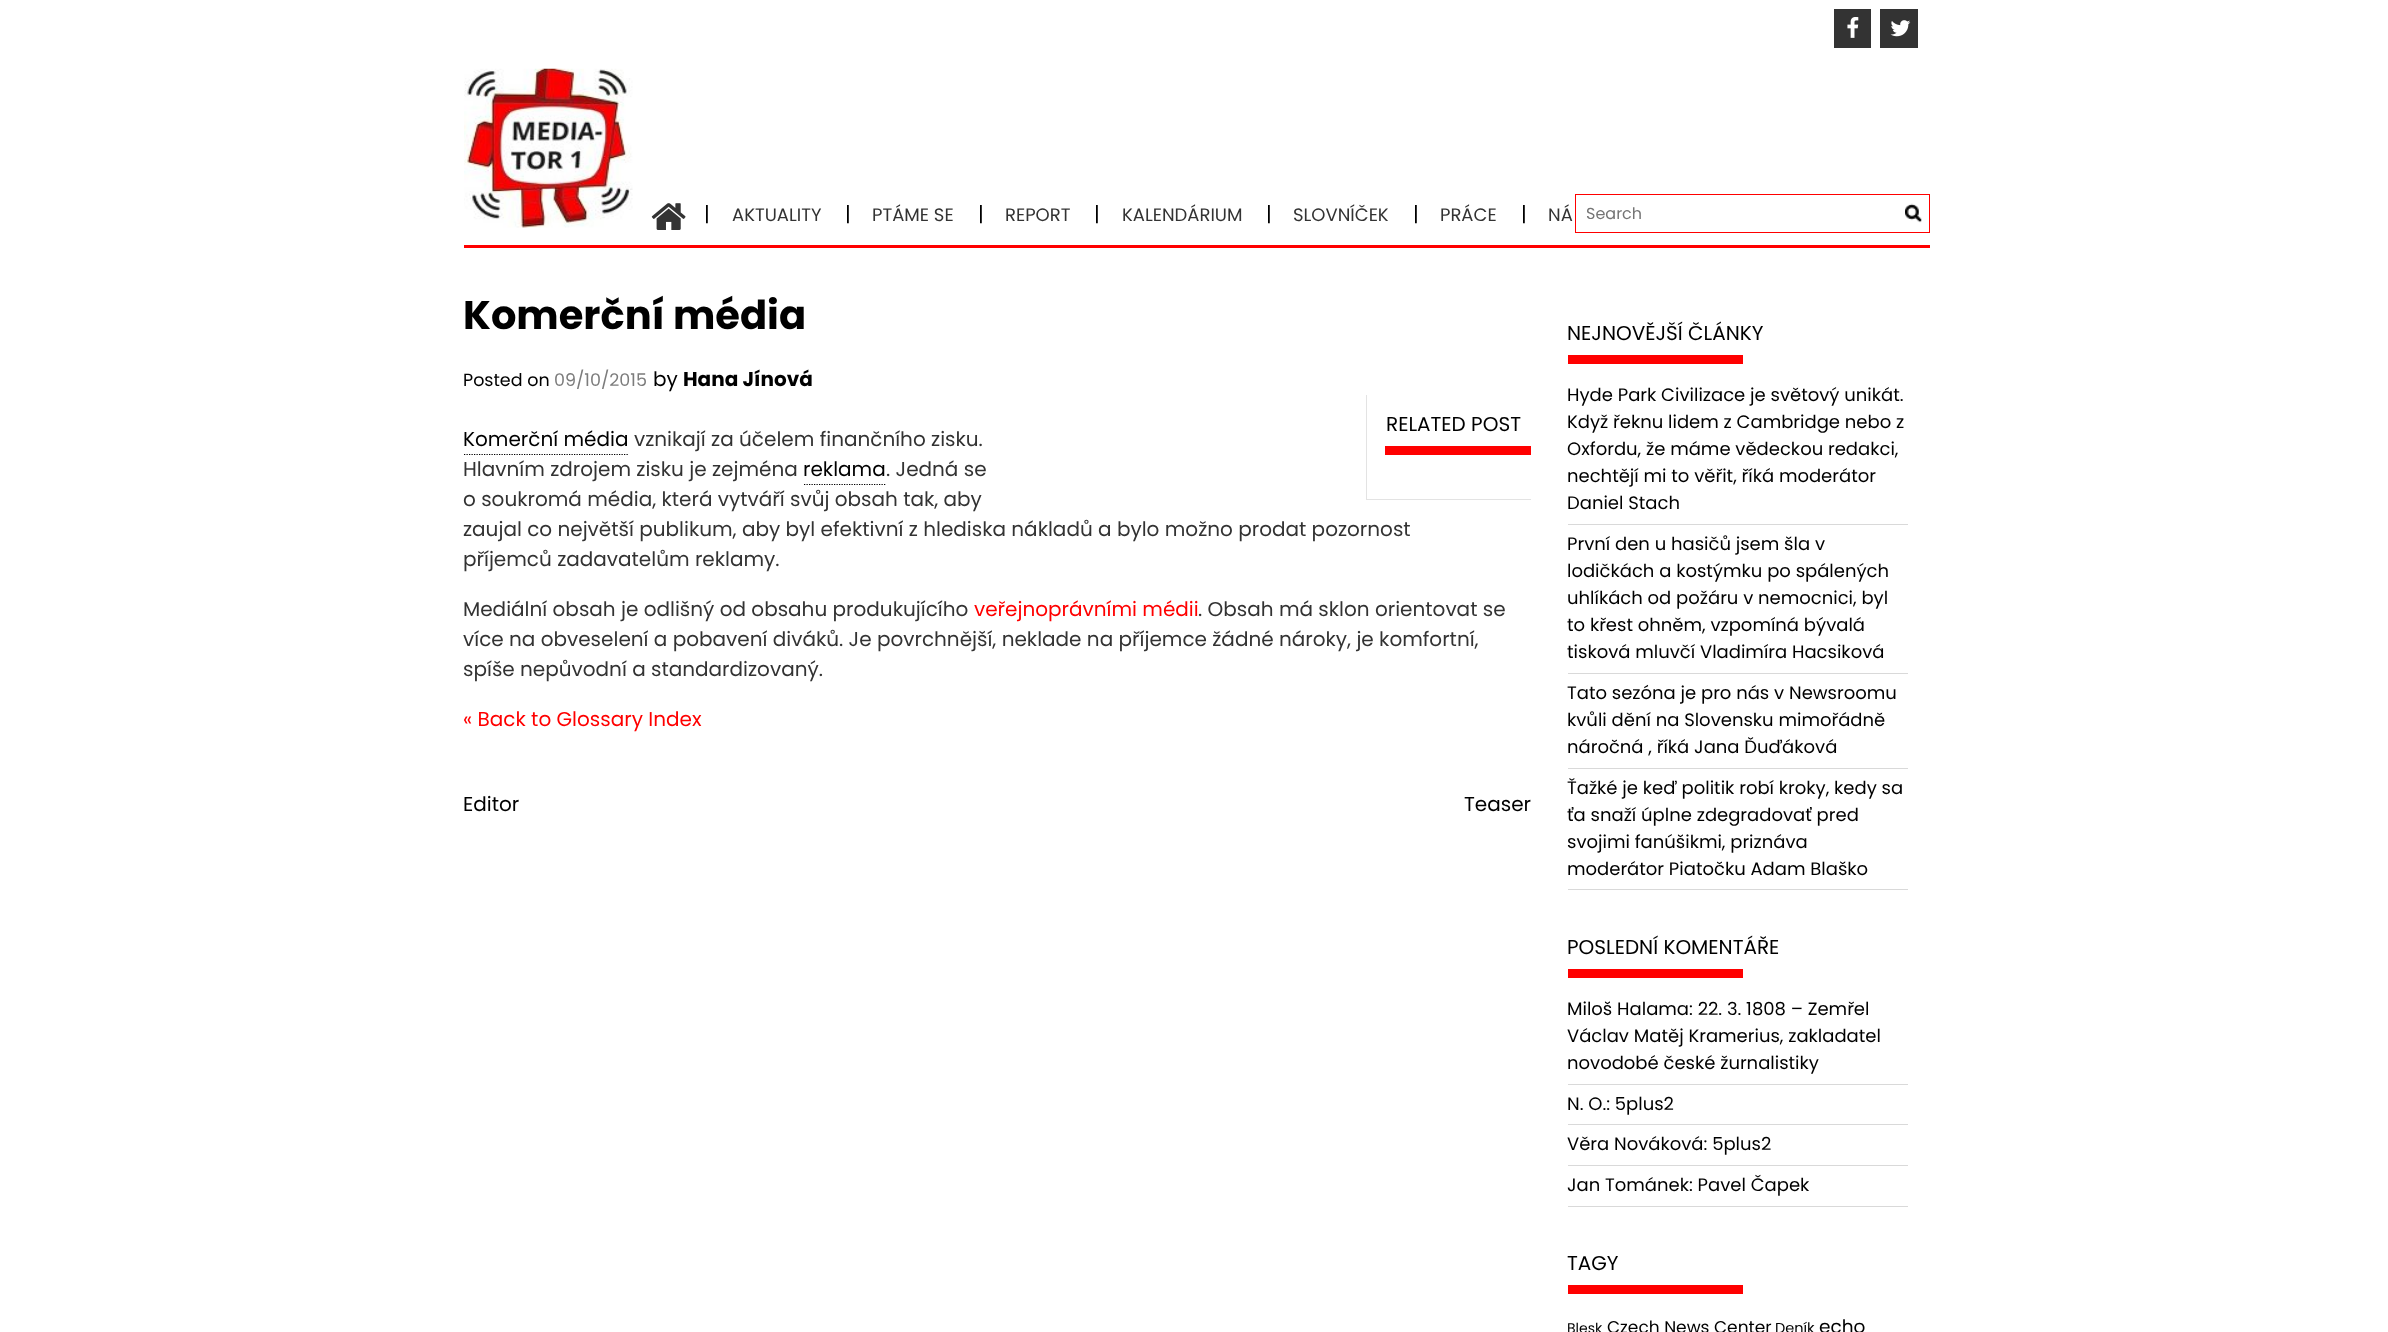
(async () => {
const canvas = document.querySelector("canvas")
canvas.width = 2388
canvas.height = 1332
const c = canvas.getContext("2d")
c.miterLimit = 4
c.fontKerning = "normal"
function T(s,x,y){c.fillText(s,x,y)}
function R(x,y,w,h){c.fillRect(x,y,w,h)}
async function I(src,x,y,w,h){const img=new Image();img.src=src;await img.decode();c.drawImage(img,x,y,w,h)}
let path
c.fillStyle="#fff"
R(0,0,2388,1332)
c.fillStyle="#333"
R(1834,9,37,39)
await I("1.png",1847,17,12,21)
R(1880,9,38,39)
await I("2.png",1890,20,21,17)
await I("3.png",464,68,169,160)
c.fillStyle="#f00"
R(464,245,1466,3)
await I("4.png",651,203,35,27)
c.font="20px Poppins"
c.fillStyle="#000"
T("|",704,221)
c.font="18px Poppins"
c.fillStyle="#333"
T("AKTUALITY",732,221)
c.font="20px Poppins"
c.fillStyle="#000"
T("|",845,221)
c.font="18px Poppins"
c.fillStyle="#333"
T("PTÁME SE",872,221)
c.font="20px Poppins"
c.fillStyle="#000"
T("|",978,221)
c.font="18px Poppins"
c.fillStyle="#333"
T("REPORT",1005,221)
c.font="20px Poppins"
c.fillStyle="#000"
T("|",1094,221)
c.font="18px Poppins"
c.fillStyle="#333"
T("KALENDÁRIUM",1122,221)
c.font="20px Poppins"
c.fillStyle="#000"
T("|",1266,221)
c.font="18px Poppins"
c.fillStyle="#333"
T("SLOVNÍČEK",1293,221)
c.font="20px Poppins"
c.fillStyle="#000"
T("|",1413,221)
c.font="18px Poppins"
c.fillStyle="#333"
T("PRÁCE",1440,221)
c.font="20px Poppins"
c.fillStyle="#000"
T("|",1521,221)
c.font="18px Poppins"
c.fillStyle="#333"
T("NÁ",1548,221)
c.strokeStyle="#f00"
c.strokeRect(1575.5,194.5,354,38)
c.font="16px Poppins"
c.fillStyle="#757575"
T("Search",1586,219)
await I("5.png",1905,203,17,20)
c.font="bold 40px Poppins"
c.fillStyle="#000"
T("Komerční média",463,329)
c.font="17.5px Poppins"
T("Posted on",463,386)
c.fillStyle="#7c7c7c"
T("09/10/2015",554,386)
c.font="20px Poppins"
c.fillStyle="#000"
T("by",653,386)
c.font="bold 20px Poppins"
T("Hana Jínová",683,386)
c.fillStyle="#e3e3e3"
R(1366,499,165,1)
R(1366,395,1,105)
c.font="20px Poppins"
c.fillStyle="#000"
T("RELATED POST",1386,431)
c.fillStyle="#f00"
R(1385,446,146,9)
c.fillStyle="#000"
T("Komerční média",463,446)
path = new Path2D("M464 454.5h165")
c.strokeStyle="#000"
c.lineWidth=1.2
c.setLineDash([1.25,1.25])
c.stroke(path)
c.fillStyle="#333"
T("vznikají za účelem finančního zisku.",634,446)
T("Hlavním zdrojem zisku je zejména",463,476)
c.fillStyle="#000"
T("reklama",803,476)
path = new Path2D("M804 484.5h82")
c.stroke(path)
c.fillStyle="#333"
T(". Jedná se",886,476)
T("o soukromá média, která vytváří svůj obsah tak, aby",463,506)
T("zaujal co největší publikum, aby byl efektivní z hlediska nákladů a bylo možno prodat pozornost",463,536)
T("příjemců zadavatelům reklamy.",463,566)
T("Mediální obsah je odlišný od obsahu produkujícího",463,616)
c.fillStyle="#f00"
T("veřejnoprávními médii",974,616)
c.fillStyle="#333"
T(". Obsah má sklon orientovat se",1198,616)
T("více na obveselení a pobavení diváků. Je povrchnější, neklade na příjemce žádné nároky, je komfortní,",463,646)
T("spíše nepůvodní a standardizovaný.",463,676)
c.fillStyle="#f00"
T("« Back to Glossary Index",463,726)
c.fillStyle="#000"
T("Editor",463,811)
T("Teaser",1464,811)
T("NEJNOVĚJŠÍ ČLÁNKY",1567,340)
c.fillStyle="#f00"
R(1568,355,175,9)
c.fillStyle="#d9d9d9"
R(1568,524,340,1)
c.font="18px Poppins"
c.fillStyle="#000"
T("Hyde Park Civilizace je světový unikát.",1567,401)
T("Když řeknu lidem z Cambridge nebo z",1567,428)
T("Oxfordu, že máme vědeckou redakci,",1567,455)
T("nechtějí mi to věřit, říká moderátor",1567,482)
T("Daniel Stach",1567,509)
c.fillStyle="#d9d9d9"
R(1568,673,340,1)
c.fillStyle="#000"
T("První den u hasičů jsem šla v",1567,550)
T("lodičkách a kostýmku po spálených",1567,577)
T("uhlíkách od požáru v nemocnici, byl",1567,604)
T("to křest ohněm, vzpomíná bývalá",1567,631)
T("tisková mluvčí Vladimíra Hacsiková",1567,658)
c.fillStyle="#d9d9d9"
R(1568,768,340,1)
c.fillStyle="#000"
T("Tato sezóna je pro nás v Newsroomu",1567,699)
T("kvůli dění na Slovensku mimořádně",1567,726)
T("náročná , říká Jana Ďuďáková",1567,753)
c.fillStyle="#d9d9d9"
R(1568,889,340,1)
c.fillStyle="#000"
T("Ťažké je keď politik robí kroky, kedy sa",1567,794)
T("ťa snaží úplne zdegradovať pred",1567,821)
T("svojimi fanúšikmi, priznáva",1567,848)
T("moderátor Piatočku Adam Blaško",1567,875)
c.font="20px Poppins"
T("POSLEDNÍ KOMENTÁŘE",1567,954)
c.fillStyle="#f00"
R(1568,969,175,9)
c.fillStyle="#d9d9d9"
R(1568,1084,340,1)
c.font="18px Poppins"
c.fillStyle="#000"
T("Miloš Halama: 22. 3. 1808 – Zemřel",1567,1015)
T("Václav Matěj Kramerius, zakladatel",1567,1042)
T("novodobé české žurnalistiky",1567,1069)
c.fillStyle="#d9d9d9"
R(1568,1124,340,1)
c.fillStyle="#000"
T("N. O.: 5plus2",1567,1110)
c.fillStyle="#d9d9d9"
R(1568,1165,340,1)
c.fillStyle="#000"
T("Věra Nováková: 5plus2",1567,1150)
c.fillStyle="#d9d9d9"
R(1568,1206,340,1)
c.fillStyle="#000"
T("Jan Tománek: Pavel Čapek",1567,1191)
c.font="20px Poppins"
T("TAGY",1567,1270)
c.fillStyle="#f00"
R(1568,1285,175,9)
c.font="14px Poppins"
c.fillStyle="#000"
T("Blesk",1567,1333)
c.font="17px Poppins"
T("Czech News Center",1607,1333)
c.font="14.5px Poppins"
T("Deník",1775,1333)
c.font="18.5px Poppins"
T("echo",1819,1333)
})()
